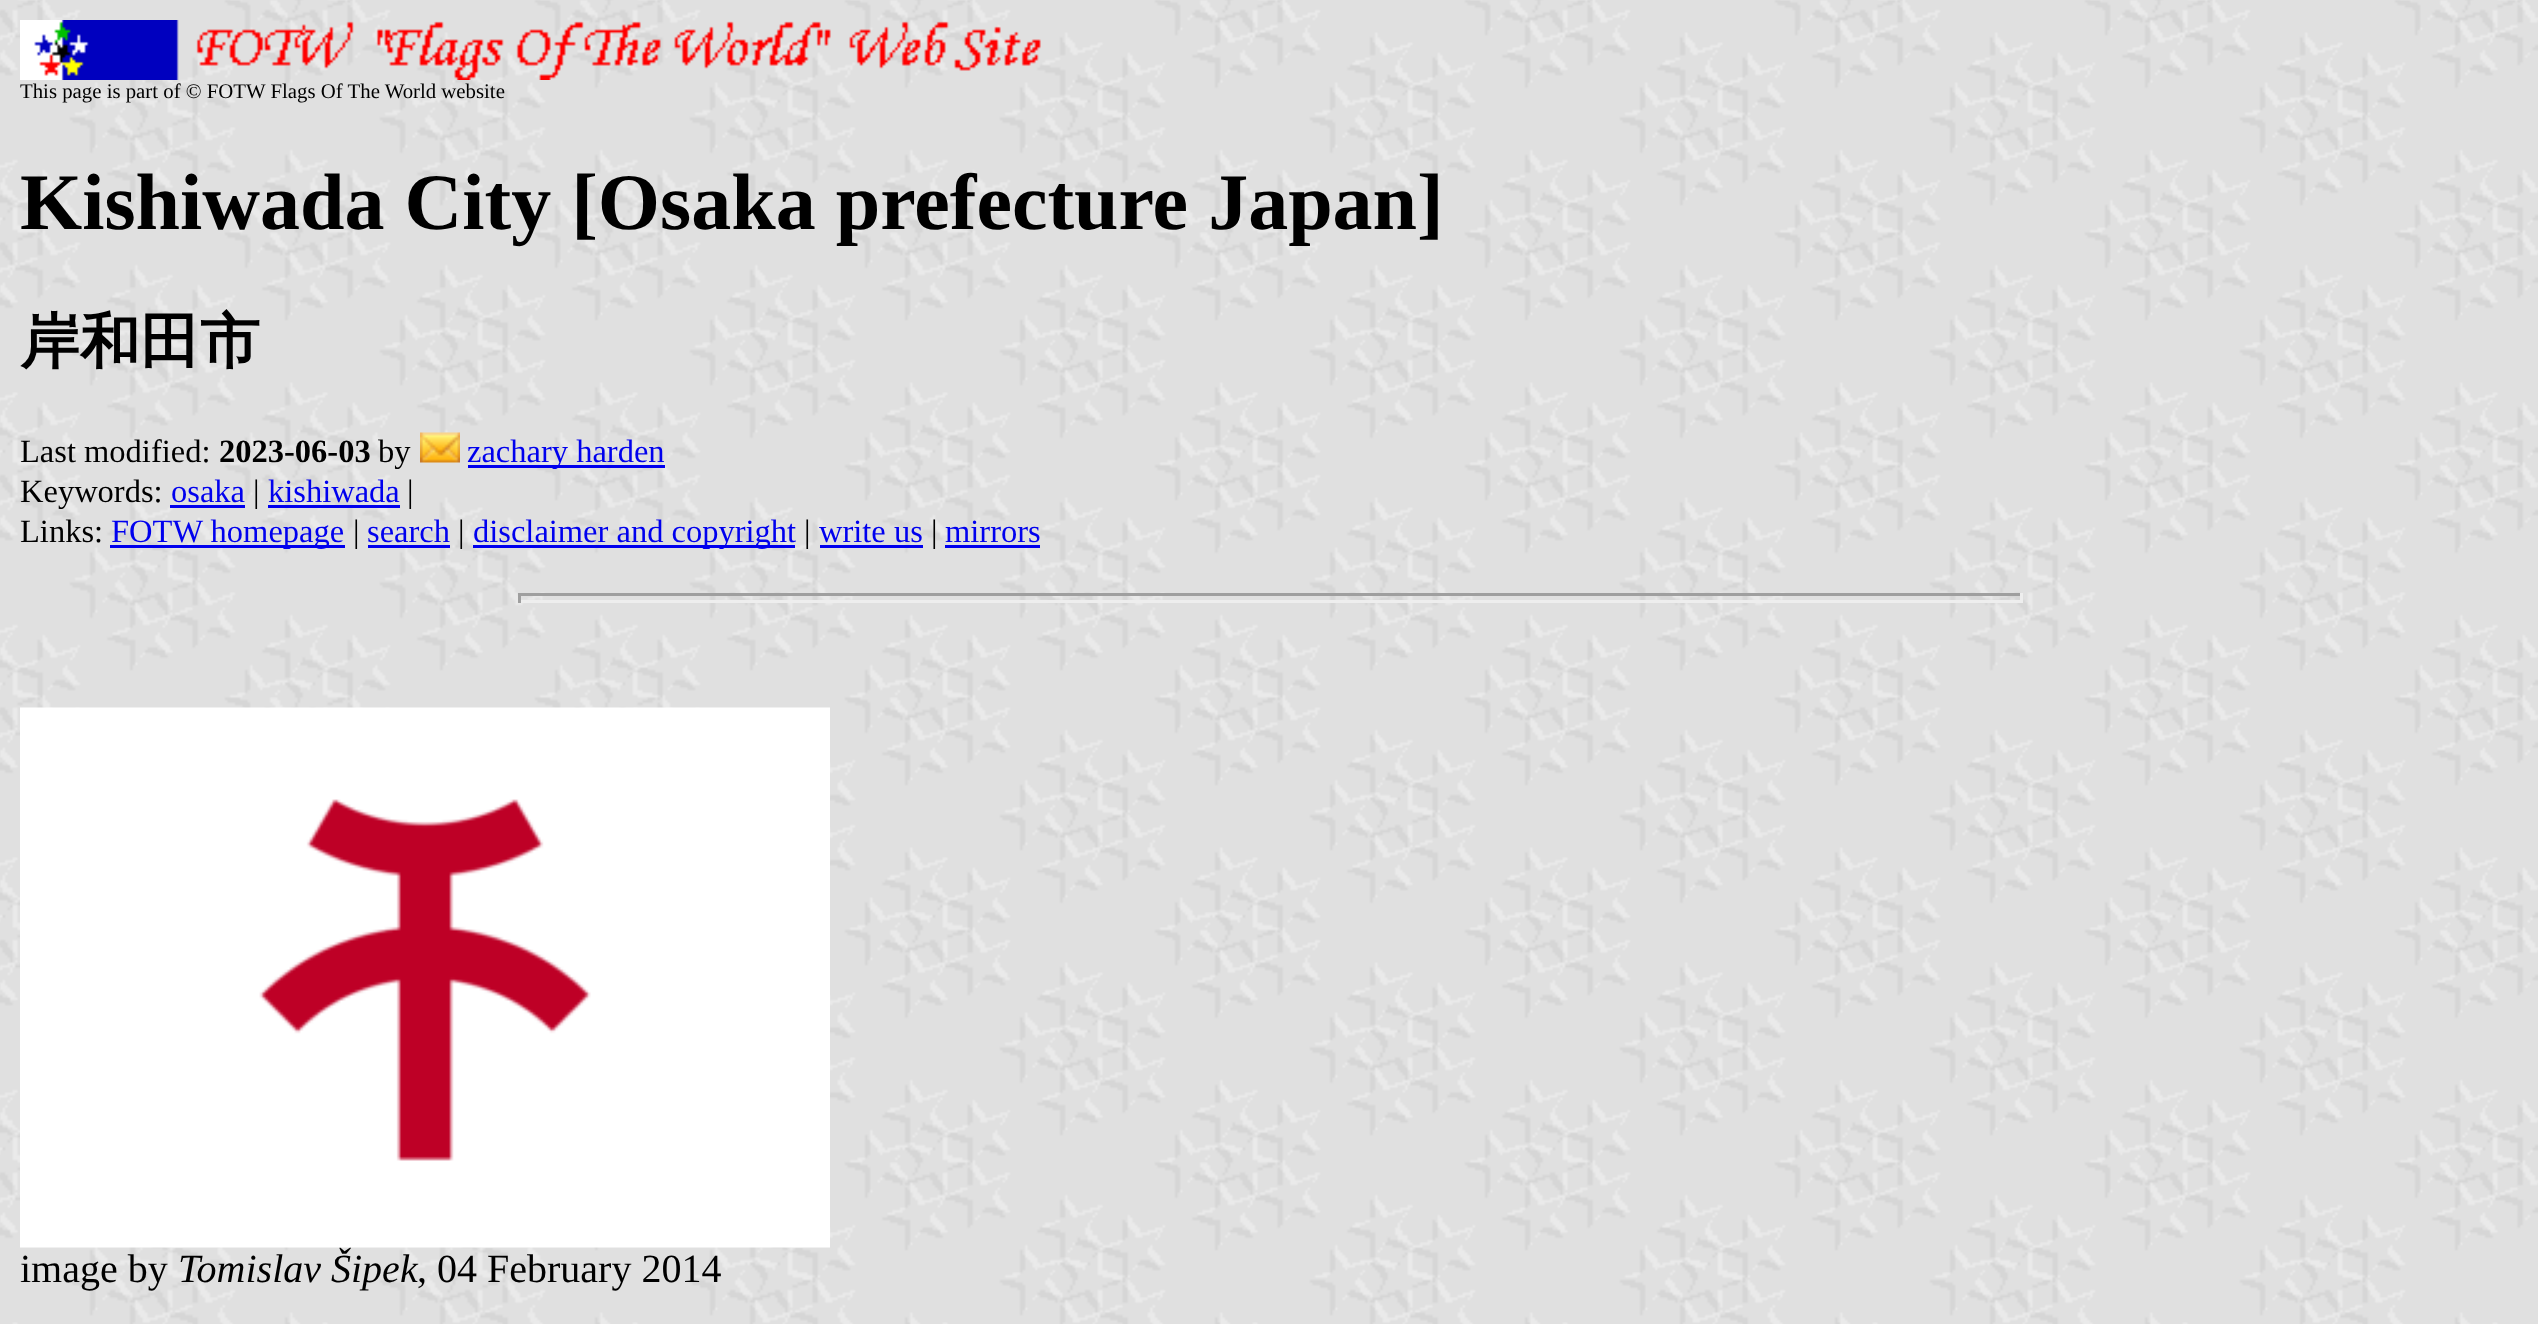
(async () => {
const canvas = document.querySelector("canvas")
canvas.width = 2538
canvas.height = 1324
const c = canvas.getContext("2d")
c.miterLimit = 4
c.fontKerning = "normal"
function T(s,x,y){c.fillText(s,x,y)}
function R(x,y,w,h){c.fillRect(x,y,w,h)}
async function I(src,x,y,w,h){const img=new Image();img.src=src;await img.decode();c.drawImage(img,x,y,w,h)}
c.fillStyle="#fff"
R(0,0,2538,1324)
await I("1.png",0,0,2538,1324)
await I("2.png",20,20,1021,60)
c.font="20.8px Liberation Serif"
c.fillStyle="#000"
T("This page is part of © FOTW Flags Of The World website",20,98)
c.font="bold 80px Liberation Serif"
T("Kishiwada City [Osaka prefecture Japan]",20,229)
c.font="bold 60px WenQuanYi Zen Hei"
T("岸和田市",20,362)
c.font="32.5px Liberation Serif"
T("Last modified:",20,462)
c.font="bold 32.5px Liberation Serif"
T("2023-06-03",219,462)
c.font="32.5px Liberation Serif"
T("by",378,462)
await I("3.png",420,432,40,31)
c.fillStyle="#00e"
R(468,465,197,3)
T("zachary harden",467,462)
c.fillStyle="#000"
T("Keywords:",20,502)
c.fillStyle="#00e"
T("osaka",171,502)
R(170,505,75,3)
c.fillStyle="#000"
T("|",253,502)
c.fillStyle="#00e"
T("kishiwada",268,502)
R(268,505,132,3)
c.fillStyle="#000"
T("|",407,502)
T("Links:",20,542)
c.fillStyle="#00e"
R(110,545,235,3)
T("FOTW homepage",111,542)
c.fillStyle="#000"
T("|",353,542)
c.fillStyle="#00e"
T("search",367,542)
R(368,545,82,3)
c.fillStyle="#000"
T("|",458,542)
c.fillStyle="#00e"
R(473,545,322,3)
T("disclaimer and copyright",473,542)
c.fillStyle="#000"
T("|",804,542)
c.fillStyle="#00e"
T("write us",819,542)
R(820,545,103,3)
c.fillStyle="#000"
T("|",931,542)
c.fillStyle="#00e"
T("mirrors",945,542)
R(945,545,95,3)
c.fillStyle="#9f9f9f"
R(518,593,1505,3)
c.fillStyle="#eee"
R(2020,593,3,10)
R(518,600,1505,3)
c.fillStyle="#9f9f9f"
R(518,593,3,10)
await I("4.png",20,707,810,541)
c.font="40px Liberation Serif"
c.fillStyle="#000"
T("image by",20,1282)
c.font="italic 40px Liberation Serif"
T("Tomislav Šipek",178,1282)
c.font="40px Liberation Serif"
T(", 04 February 2014",417,1282)
})()
